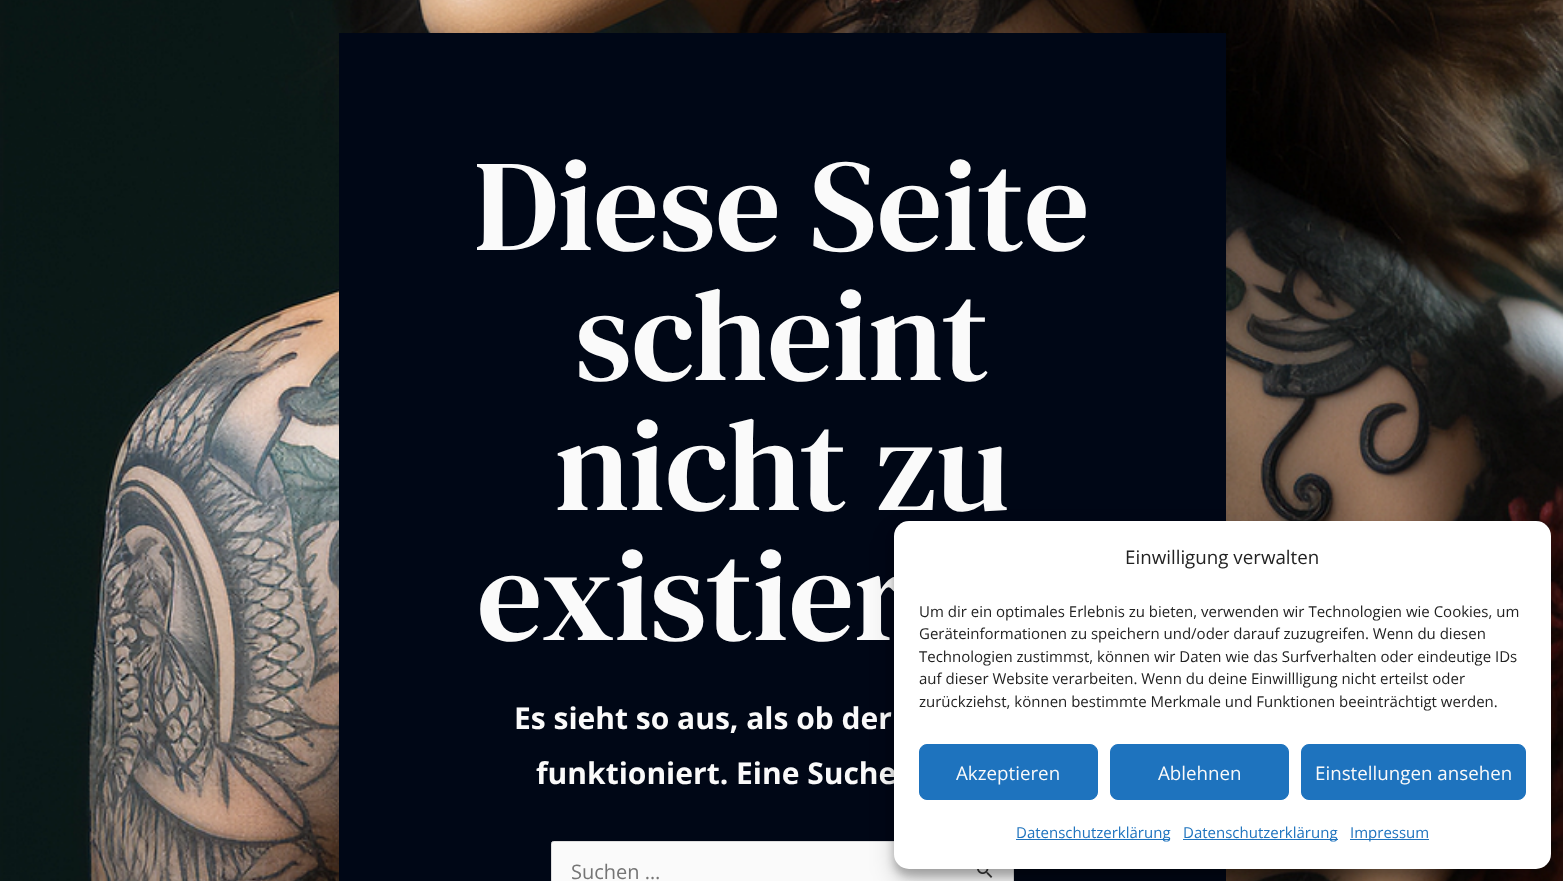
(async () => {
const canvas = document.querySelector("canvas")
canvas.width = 1563
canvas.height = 881
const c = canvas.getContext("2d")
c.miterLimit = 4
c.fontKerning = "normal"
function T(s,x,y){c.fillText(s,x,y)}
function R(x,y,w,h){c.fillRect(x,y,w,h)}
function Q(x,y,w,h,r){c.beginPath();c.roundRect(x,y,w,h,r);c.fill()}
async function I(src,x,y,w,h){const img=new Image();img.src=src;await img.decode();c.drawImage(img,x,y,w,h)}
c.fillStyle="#fff"
R(0,0,1563,881)
await I("1.png",0,0,1563,881)
c.fillStyle="#000716"
R(339,33,887,848)
c.font="130px DM Serif Text"
c.fillStyle="#fafafa"
T("Diese Seite",474,250)
T("scheint",575,380)
T("nicht zu",555,510)
T("existier",477,640)
c.font="bold 30px Open Sans"
T("Es sieht so aus, als ob der",514,729)
T("funktioniert. Eine Suche",536,784)
c.beginPath()
c.roundRect(551.5,841.5,462,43,2)
c.fill()
c.strokeStyle="#ddd"
c.stroke()
c.font="20px Open Sans"
c.fillStyle="#757575"
T("Suchen …",571,879)
await I("2.png",977,869,16,9)
c.fillStyle="#0000003b"
c.filter="blur(4px)"
c.beginPath()
c.roundRect(894,529,657,347,15)
c.fill()
c.filter="none"
c.fillStyle="#00000030"
c.filter="blur(12.5px)"
c.beginPath()
c.roundRect(894,534,657,347,15)
c.fill()
c.filter="none"
c.fillStyle="#fff"
Q(894,521,657,348,15)
c.font="18.75px Open Sans"
c.fillStyle="#222"
T("Einwilligung verwalten",1125,564)
c.font="15px Open Sans"
T("Um dir ein optimales Erlebnis zu bieten, verwenden wir Technologien wie Cookies, um",919,617)
T("Geräteinformationen zu speichern und/oder darauf zuzugreifen. Wenn du diesen",919,639)
T("Technologien zustimmst, können wir Daten wie das Surfverhalten oder eindeutige IDs",919,662)
T("auf dieser Website verarbeiten. Wenn du deine Einwillligung nicht erteilst oder",919,684)
T("zurückziehst, können bestimmte Merkmale und Funktionen beeinträchtigt werden.",919,707)
c.fillStyle="#1e73be"
c.beginPath()
c.roundRect(919.5,744.5,178,55,7.5)
c.fill()
c.strokeStyle="#1e73be"
c.stroke()
c.font="18.75px Open Sans"
c.fillStyle="#fafafa"
T("Akzeptieren",956,780)
c.fillStyle="#1e73be"
c.beginPath()
c.roundRect(1110.5,744.5,178,55,7.5)
c.fill()
c.stroke()
c.fillStyle="#fafafa"
T("Ablehnen",1158,780)
c.fillStyle="#1e73be"
c.beginPath()
c.roundRect(1301.5,744.5,224,55,7.5)
c.fill()
c.stroke()
c.fillStyle="#fafafa"
T("Einstellungen ansehen",1315,780)
c.fillStyle="#1e73be"
R(1016,839,154,1)
c.font="15px Open Sans"
T("Datenschutzerklärung",1016,838)
R(1183,839,155,1)
T("Datenschutzerklärung",1183,838)
R(1350,839,79,1)
T("Impressum",1350,838)
})()
